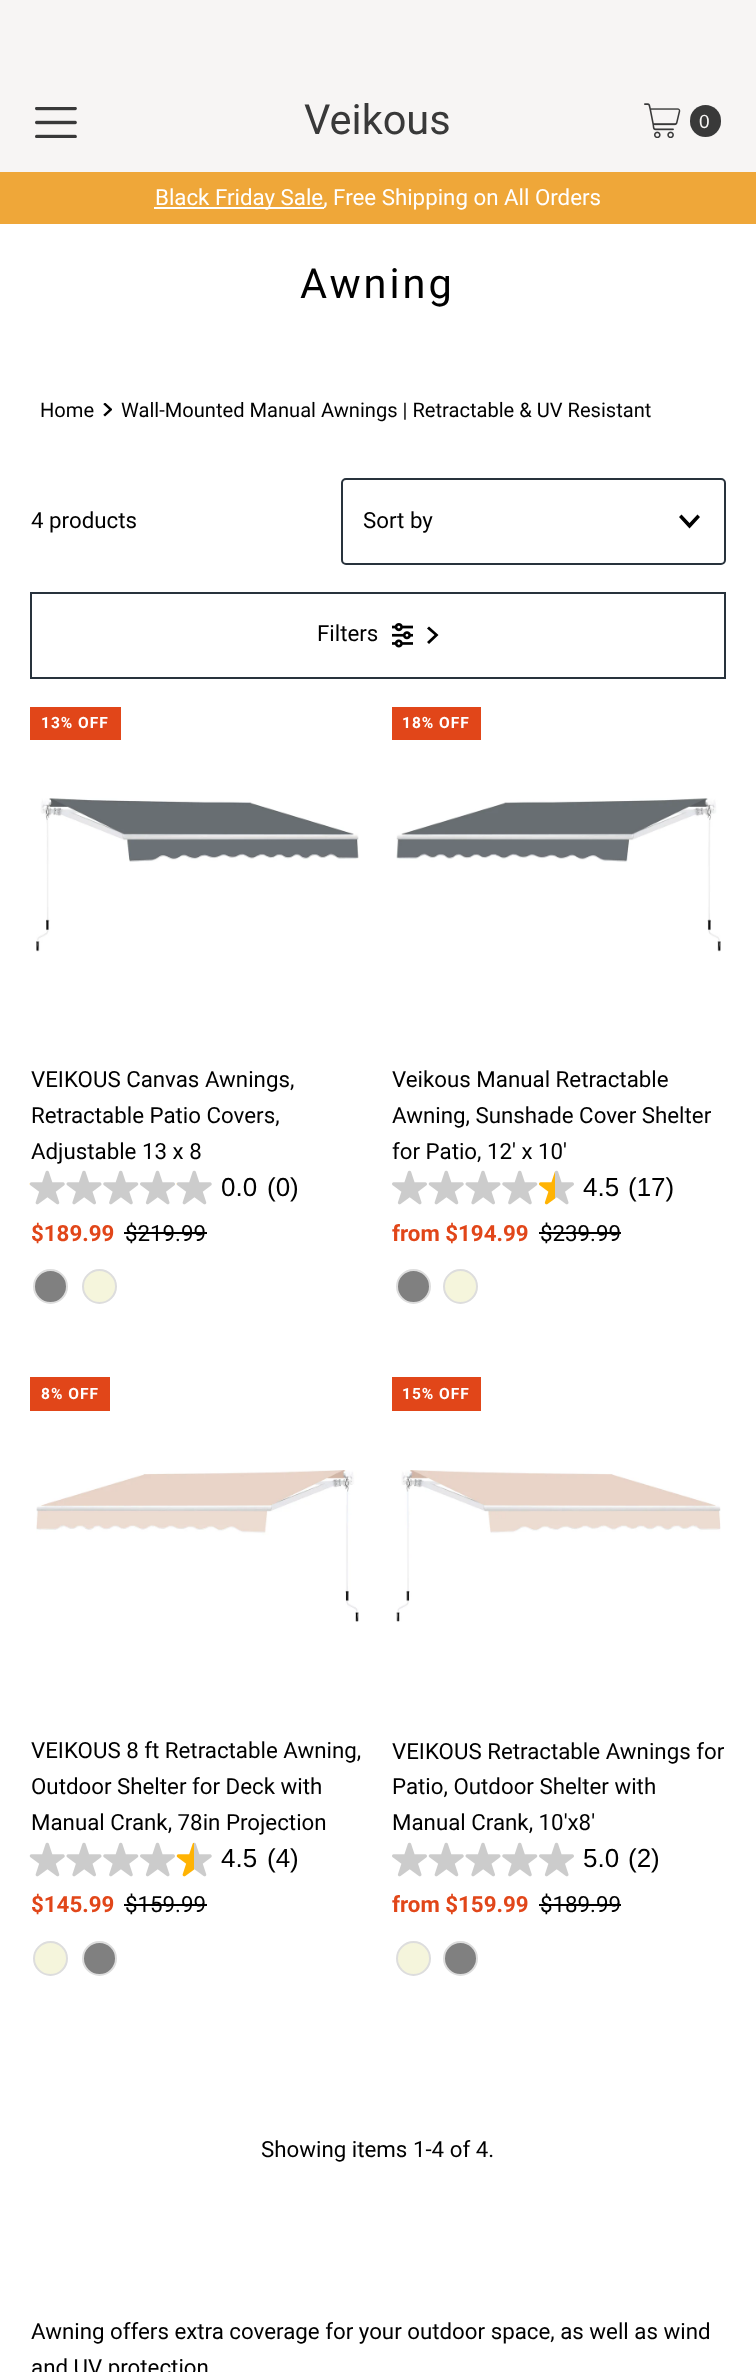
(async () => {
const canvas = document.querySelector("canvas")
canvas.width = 756
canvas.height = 2372
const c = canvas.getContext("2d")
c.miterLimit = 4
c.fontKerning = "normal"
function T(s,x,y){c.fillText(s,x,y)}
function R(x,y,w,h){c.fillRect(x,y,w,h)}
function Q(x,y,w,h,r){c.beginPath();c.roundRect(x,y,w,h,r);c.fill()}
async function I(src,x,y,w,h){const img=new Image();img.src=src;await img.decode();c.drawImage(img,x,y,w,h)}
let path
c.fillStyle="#fff"
R(0,0,756,2372)
c.fillStyle="#f7f5f4"
R(0,0,756,172)
await I("1.png",35,107,42,31)
c.font="41.5px Roboto"
c.fillStyle="#393939"
T("Veikous",304,134)
await I("2.png",644,103,37,35)
Q(690,105,31,32,15.5)
c.font="19px Liberation Sans"
c.fillStyle="#f7f5f4"
T("0",699,128)
c.fillStyle="#efa739"
R(0,172,756,52)
c.fillStyle="#fff"
R(154,207,170,2)
c.font="22.3px Roboto"
T("Black Friday Sale, Free Shipping on All Orders",155,205)
c.letterSpacing="3px"
c.font="41.5px Roboto"
c.fillStyle="#000"
T("Awning",300,298)
c.letterSpacing="0px"
c.font="20.1px Roboto"
T("Home",40,417)
await I("3.png",103,403,9,14)
T("Wall-Mounted Manual Awnings | Retractable & UV Resistant",121,417)
c.font="22.3px Roboto"
T("4 products",31,528)
c.beginPath()
c.roundRect(342,479,383,85,4)
c.strokeStyle="#28323c"
c.lineWidth=2
c.stroke()
T("Sort by",363,528)
path = new Path2D("M697.5 514.5l-8 8.5l-8-8.5l-2.5 2.5l10.5 11.5l10.5-11.5z")
c.fill(path)
c.strokeRect(31,593,694,85)
T("Filters",317,641)
await I("4.png",392,623,21,25)
path = new Path2D("M427 628.5l2-2l9.5 8.5l-9.5 9l-2-2l7.5-7z")
c.fill(path)
c.fillStyle="#e14619"
R(30,707,91,33)
c.letterSpacing="1px"
c.font="bold 15.5px Roboto"
c.fillStyle="#fff"
T("13% OFF",41,728)
await I("5.png",36,798,323,154)
c.letterSpacing="0px"
c.font="22.3px Roboto"
c.fillStyle="#000"
T("VEIKOUS Canvas Awnings,",31,1087)
T("Retractable Patio Covers,",31,1123)
T("Adjustable 13 x 8",31,1159)
await I("6.png",29,1170,36,35)
await I("7.png",66,1170,36,35)
await I("8.png",103,1170,36,35)
await I("9.png",140,1170,35,35)
await I("6.png",176,1170,36,35)
c.font="26px Liberation Sans"
T("0.0",221,1196)
T("(0)",267,1196)
c.font="bold 22.3px Roboto"
c.fillStyle="#e14619"
T("$189.99",31,1241)
c.font="22.3px Roboto"
c.fillStyle="#000"
T("$219.99",125,1241)
R(124,1232,83,2)
c.fillStyle="#808080"
c.beginPath()
c.arc(50.5,1286.5,16.5,0,7)
c.fill()
c.strokeStyle="#ddd"
c.stroke()
c.fillStyle="#f5f5dc"
c.beginPath()
c.arc(99.5,1286.5,16.5,0,7)
c.fill()
c.stroke()
c.fillStyle="#e14619"
R(392,707,89,33)
c.letterSpacing="1px"
c.font="bold 15.5px Roboto"
c.fillStyle="#fff"
T("18% OFF",402,728)
await I("10.png",396,798,325,154)
c.letterSpacing="0px"
c.font="22.3px Roboto"
c.fillStyle="#000"
T("Veikous Manual Retractable",392,1087)
T("Awning, Sunshade Cover Shelter",392,1123)
T("for Patio, 12' x 10'",392,1159)
await I("9.png",392,1170,35,35)
await I("11.png",428,1170,36,35)
await I("7.png",465,1170,36,35)
await I("8.png",502,1170,36,35)
await I("12.png",539,1170,35,35)
c.font="26px Liberation Sans"
T("4.5",583,1196)
T("(17)",628,1196)
c.font="bold 22.3px Roboto"
c.fillStyle="#e14619"
T("from $194.99",392,1241)
c.font="22.3px Roboto"
c.fillStyle="#000"
T("$239.99",540,1241)
R(539,1232,82,2)
c.fillStyle="#808080"
c.beginPath()
c.arc(413.5,1286.5,16.5,0,7)
c.fill()
c.stroke()
c.fillStyle="#f5f5dc"
c.beginPath()
c.arc(460.5,1286.5,16.5,0,7)
c.fill()
c.stroke()
c.fillStyle="#e14619"
R(30,1377,80,34)
c.letterSpacing="1px"
c.font="bold 15.5px Roboto"
c.fillStyle="#fff"
T("8% OFF",41,1399)
await I("13.png",36,1470,323,152)
c.letterSpacing="0px"
c.font="22.3px Roboto"
c.fillStyle="#000"
T("VEIKOUS 8 ft Retractable Awning,",31,1758)
T("Outdoor Shelter for Deck with",31,1794)
T("Manual Crank, 78in Projection",31,1830)
await I("11.png",29,1842,36,35)
await I("7.png",66,1842,36,35)
await I("8.png",103,1842,36,35)
await I("9.png",140,1842,35,35)
await I("14.png",176,1842,36,35)
c.font="26px Liberation Sans"
T("4.5",221,1867)
T("(4)",267,1867)
c.font="bold 22.3px Roboto"
c.fillStyle="#e14619"
T("$145.99",31,1912)
c.font="22.3px Roboto"
c.fillStyle="#000"
T("$159.99",125,1912)
R(124,1904,83,2)
c.fillStyle="#f5f5dc"
c.beginPath()
c.arc(50.5,1958.5,16.5,0,7)
c.fill()
c.stroke()
c.fillStyle="#808080"
c.beginPath()
c.arc(99.5,1958.5,16.5,0,7)
c.fill()
c.stroke()
c.fillStyle="#e14619"
R(392,1377,89,34)
c.letterSpacing="1px"
c.font="bold 15.5px Roboto"
c.fillStyle="#fff"
T("15% OFF",402,1399)
await I("15.png",396,1470,325,152)
c.letterSpacing="0px"
c.font="22.3px Roboto"
c.fillStyle="#000"
T("VEIKOUS Retractable Awnings for",392,1759)
T("Patio, Outdoor Shelter with",392,1794)
T("Manual Crank, 10'x8'",392,1830)
await I("9.png",392,1842,35,35)
await I("11.png",428,1842,36,35)
await I("7.png",465,1842,36,35)
await I("8.png",502,1842,36,35)
await I("9.png",539,1842,35,35)
c.font="26px Liberation Sans"
T("5.0",583,1867)
T("(2)",628,1867)
c.font="bold 22.3px Roboto"
c.fillStyle="#e14619"
T("from $159.99",392,1912)
c.font="22.3px Roboto"
c.fillStyle="#000"
T("$189.99",540,1912)
R(539,1904,82,2)
c.fillStyle="#f5f5dc"
c.beginPath()
c.arc(413.5,1958.5,16.5,0,7)
c.fill()
c.stroke()
c.fillStyle="#808080"
c.beginPath()
c.arc(460.5,1958.5,16.5,0,7)
c.fill()
c.stroke()
c.fillStyle="#000"
T("Showing items 1-4 of 4.",261,2157)
T("Awning offers extra coverage for your outdoor space, as well as wind",31,2339)
T("and UV protection",31,2375)
})()
